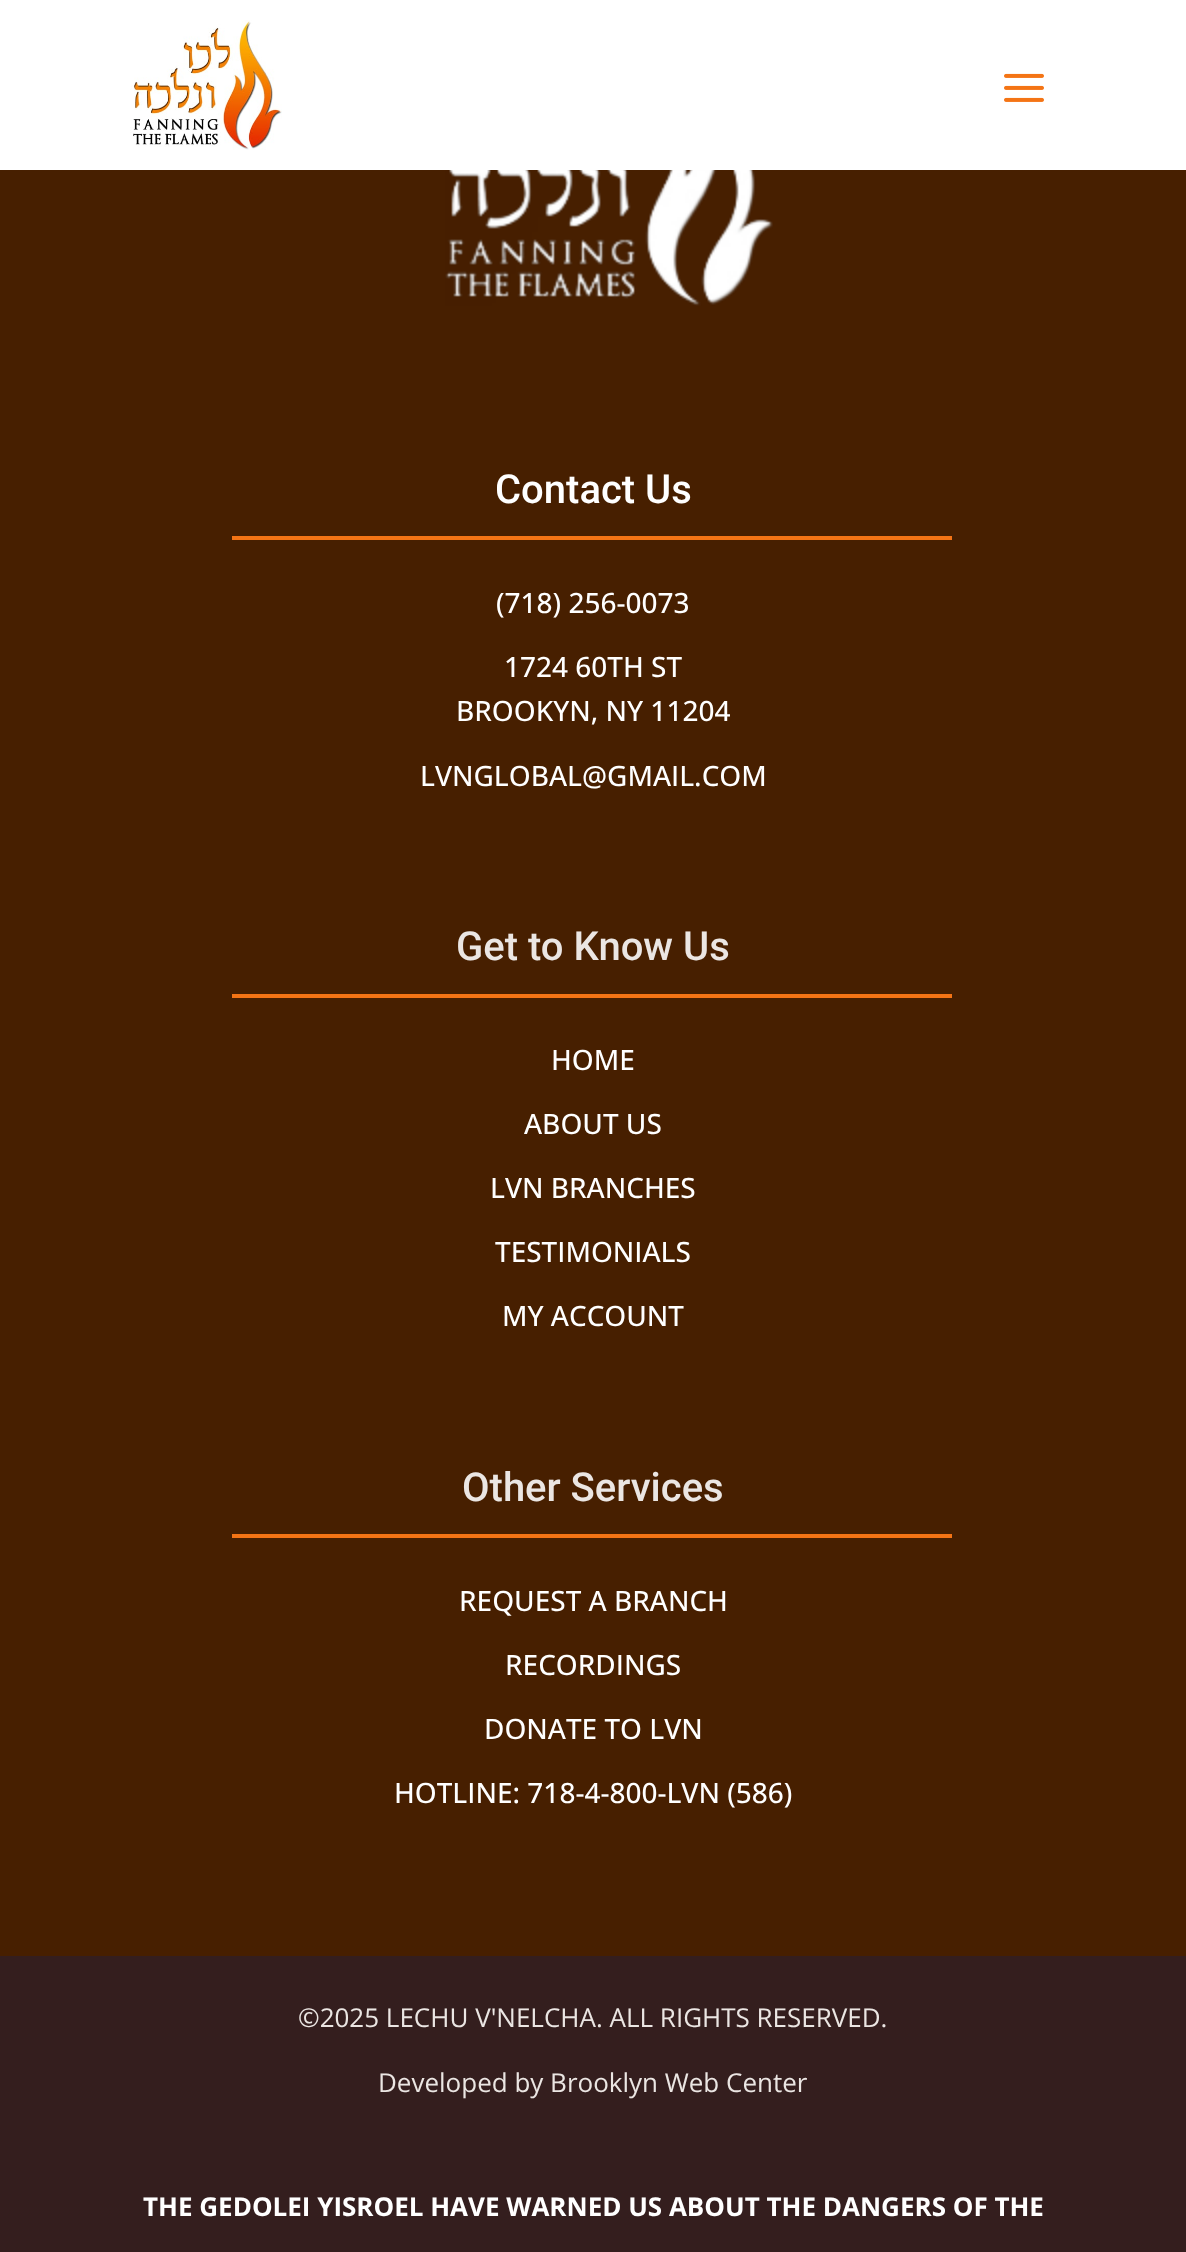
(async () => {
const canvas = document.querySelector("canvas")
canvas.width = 1186
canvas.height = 2252
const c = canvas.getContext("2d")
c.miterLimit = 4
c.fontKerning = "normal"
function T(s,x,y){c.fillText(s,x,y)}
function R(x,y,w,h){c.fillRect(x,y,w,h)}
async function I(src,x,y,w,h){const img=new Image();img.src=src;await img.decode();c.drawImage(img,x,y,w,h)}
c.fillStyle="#471f00"
R(0,0,1186,2252)
c.fillStyle="#fff"
R(0,0,1186,170)
await I("1.png",130,20,152,130)
await I("2.png",1004,73,40,29)
await I("3.png",445,170,328,136)
c.fillStyle="#f47415"
R(232,536,720,4)
c.font="500 40px Roboto"
c.fillStyle="#fff"
T("Contact Us",495,503)
c.font="500 28px Open Sans"
T("(718) 256-0073",496,613)
T("1724 60TH ST",504,677)
T("BROOKYN, NY 11204",456,721)
T("LVNGLOBAL@GMAIL.COM",420,786)
c.fillStyle="#f47415"
R(232,994,720,4)
c.font="500 40px Roboto"
c.fillStyle="#ebe6e3"
T("Get to Know Us",456,960)
c.font="500 28px Open Sans"
c.fillStyle="#fff"
T("HOME",551,1070)
T("ABOUT US",524,1134)
T("LVN BRANCHES",490,1198)
T("TESTIMONIALS",495,1262)
T("MY ACCOUNT",502,1326)
c.fillStyle="#f47415"
R(232,1534,720,4)
c.font="500 40px Roboto"
c.fillStyle="#ebe6e3"
T("Other Services",462,1501)
c.font="500 28px Open Sans"
c.fillStyle="#fff"
T("REQUEST A BRANCH",459,1611)
T("RECORDINGS",505,1675)
T("DONATE TO LVN",484,1739)
T("HOTLINE: 718-4-800-LVN (586)",394,1803)
c.fillStyle="#341e1e"
R(0,1956,1186,296)
c.font="26px Open Sans"
c.fillStyle="#ebe6e3"
T("©2025 LECHU V'NELCHA. ALL RIGHTS RESERVED.",298,2027)
T("Developed by Brooklyn Web Center",378,2092)
c.font="bold 26px Open Sans"
c.fillStyle="#fff"
T("THE GEDOLEI YISROEL HAVE WARNED US ABOUT THE DANGERS OF THE",143,2216)
})()
